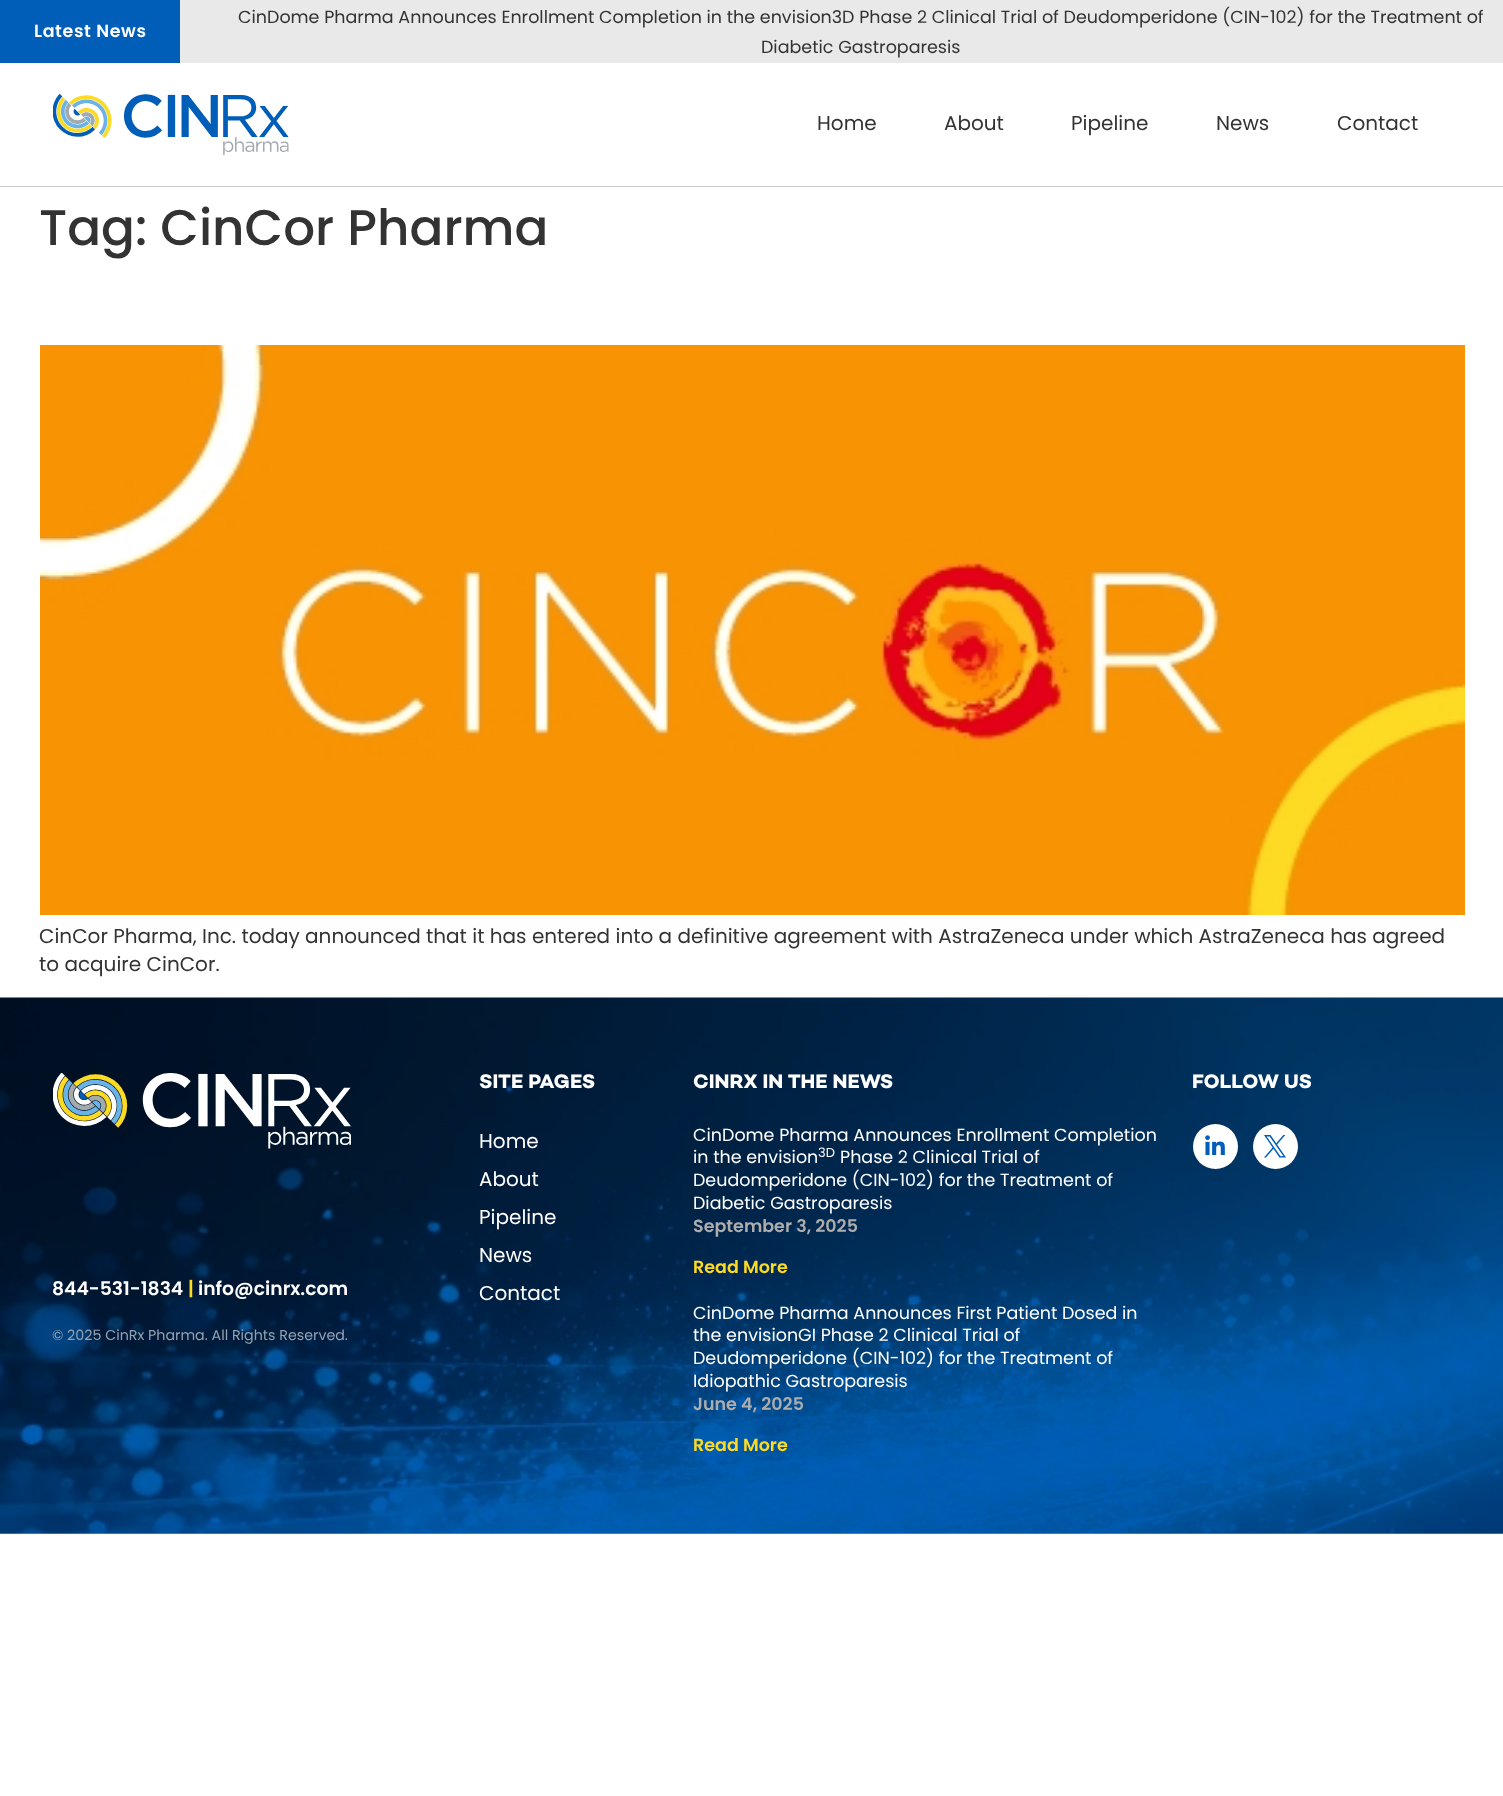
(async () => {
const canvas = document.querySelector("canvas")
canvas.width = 1503
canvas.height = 1796
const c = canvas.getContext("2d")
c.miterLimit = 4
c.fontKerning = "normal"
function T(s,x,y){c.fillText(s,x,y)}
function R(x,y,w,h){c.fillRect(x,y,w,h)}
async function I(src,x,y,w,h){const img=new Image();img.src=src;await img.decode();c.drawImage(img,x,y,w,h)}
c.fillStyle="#fff"
R(0,0,1503,1796)
c.fillStyle="#eae9e9"
R(180,0,1323,63)
c.fillStyle="#005eb8"
R(0,0,180,63)
c.letterSpacing="0.6px"
c.font="600 17.5px Poppins"
c.fillStyle="#fff"
T("Latest News",34,37)
c.letterSpacing="0px"
c.font="17.5px Poppins"
c.fillStyle="#333"
T("CinDome Pharma Announces Enrollment Completion in the envision3D Phase 2 Clinical Trial of Deudomperidone (CIN-102) for the Treatment of",238,23)
T("Diabetic Gastroparesis",761,53)
c.fillStyle="#cbcbcb"
R(0,186,1503,1)
await I("1.png",53,94,236,61)
c.font="20px Poppins"
c.fillStyle="#333"
T("Home",817,130)
T("About",944,130)
T("Pipeline",1071,130)
T("News",1216,130)
T("Contact",1337,130)
c.font="500 50px Poppins"
T("Tag: CinCor Pharma",39,245)
await I("2.png",40,345,1425,570)
c.font="20px Poppins"
T("CinCor Pharma, Inc. today announced that it has entered into a definitive agreement with AstraZeneca under which AstraZeneca has agreed",39,943)
T("to acquire CinCor.",39,971)
await I("3.png",0,997,1503,537)
c.font="bold 20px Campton"
c.fillStyle="#fff"
T("SITE PAGES",479,1088)
c.font="20px Poppins"
T("Home",479,1148)
T("About",479,1186)
T("Pipeline",479,1224)
T("News",479,1262)
T("Contact",479,1300)
c.font="bold 20px Campton"
T("CINRX IN THE NEWS",693,1088)
c.font="17.5px Poppins"
T("CinDome Pharma Announces Enrollment Completion",693,1141)
T("in the envision",693,1163)
c.font="13px Poppins"
T("3D",818,1157)
c.font="17.5px Poppins"
T("Phase 2 Clinical Trial of",840,1163)
T("Deudomperidone (CIN-102) for the Treatment of",693,1186)
T("Diabetic Gastroparesis",693,1209)
c.font="600 17.5px Poppins"
c.fillStyle="#adadad"
T("September 3, 2025",693,1232)
c.fillStyle="#fdda24"
T("Read More",693,1273)
c.font="17.5px Poppins"
c.fillStyle="#fff"
T("CinDome Pharma Announces First Patient Dosed in",693,1319)
T("the envisionGI Phase 2 Clinical Trial of",693,1341)
T("Deudomperidone (CIN-102) for the Treatment of",693,1364)
T("Idiopathic Gastroparesis",693,1387)
c.font="600 17.5px Poppins"
c.fillStyle="#adadad"
T("June 4, 2025",693,1410)
c.fillStyle="#fdda24"
T("Read More",693,1451)
c.font="bold 20px Campton"
c.fillStyle="#fff"
T("FOLLOW US",1192,1088)
c.beginPath()
c.arc(1215.5,1146.5,22.5,0,7)
c.fill()
await I("4.png",1205,1135,20,20)
c.beginPath()
c.arc(1275.5,1146.5,22.5,0,7)
c.fill()
await I("5.png",1264,1135,22,23)
await I("6.png",53,1073,298,76)
c.font="600 18.75px Poppins"
T("844-531-1834",52,1295)
c.fillStyle="#fdda24"
T("|",188,1295)
c.fillStyle="#fff"
T("info@cinrx.com",198,1295)
c.font="14.25px Poppins"
c.fillStyle="#94a2b2"
T("© 2025 CinRx Pharma. All Rights Reserved.",52,1340)
})()
